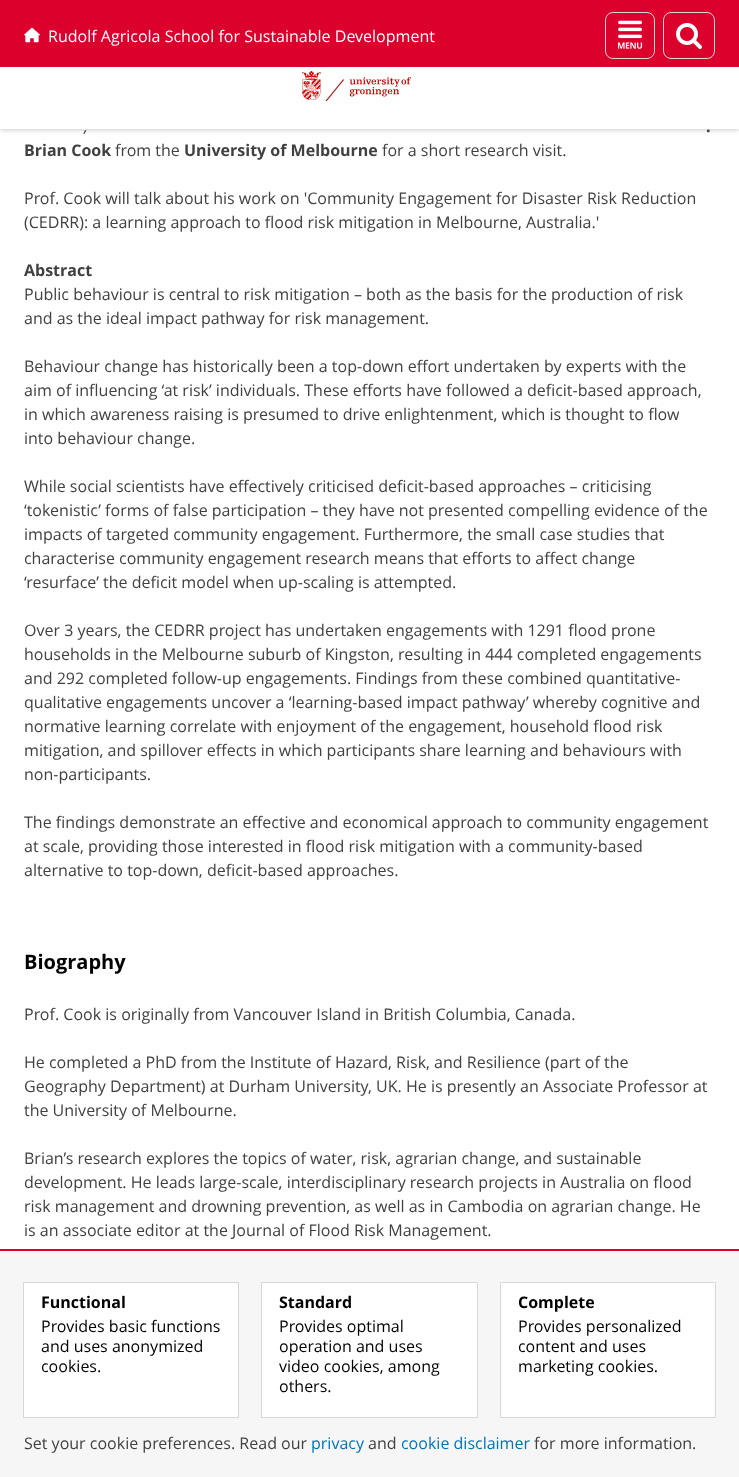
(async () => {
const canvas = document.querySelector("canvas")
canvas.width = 739
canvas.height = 1477
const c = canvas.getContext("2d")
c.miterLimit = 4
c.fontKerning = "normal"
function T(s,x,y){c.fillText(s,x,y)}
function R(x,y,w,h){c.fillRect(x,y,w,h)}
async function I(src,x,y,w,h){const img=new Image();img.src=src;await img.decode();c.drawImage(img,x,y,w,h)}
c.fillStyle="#fff"
R(0,0,739,1477)
c.fillStyle="#00000033"
c.filter="blur(2.5px)"
c.beginPath()
c.rect(0,1,739,129)
c.fill()
c.filter="none"
c.fillStyle="#fff"
R(0,67,739,62)
c.fillStyle="#dc002d"
R(0,0,739,67)
await I("1.png",24,27,16,16)
c.font="16px Open Sans"
c.fillStyle="#fff"
T("Rudolf Agricola School for Sustainable Development",48,42)
c.beginPath()
c.roundRect(605.5,12.5,49,46,7.5)
c.strokeStyle="#d7d7d7"
c.stroke()
await I("2.png",618,20,25,29)
c.beginPath()
c.roundRect(663.5,12.5,51,46,7.5)
c.stroke()
await I("3.png",676,23,26,26)
await I("4.png",302,71,109,30)
c.font="italic 16px Open Sans"
c.fillStyle="#404040"
T(",",84,132)
c.font="bold 16px Open Sans"
T(".",706,132)
T("Brian Cook",24,156)
c.font="16px Open Sans"
T("from the",115,156)
c.font="bold 16px Open Sans"
T("University of Melbourne",184,156)
c.font="16px Open Sans"
T("for a short research visit.",382,156)
T("Prof. Cook will talk about his work on 'Community Engagement for Disaster Risk Reduction",24,204)
T("(CEDRR): a learning approach to flood risk mitigation in Melbourne, Australia.'",24,228)
c.font="bold 16px Open Sans"
T("Abstract",24,276)
c.font="16px Open Sans"
T("Public behaviour is central to risk mitigation – both as the basis for the production of risk",24,300)
T("and as the ideal impact pathway for risk management.",24,324)
T("Behaviour change has historically been a top-down effort undertaken by experts with the",24,372)
T("aim of influencing ‘at risk’ individuals. These efforts have followed a deficit-based approach,",24,396)
T("in which awareness raising is presumed to drive enlightenment, which is thought to flow",24,420)
T("into behaviour change.",24,444)
T("While social scientists have effectively criticised deficit-based approaches – criticising",24,492)
T("‘tokenistic’ forms of false participation – they have not presented compelling evidence of the",24,516)
T("impacts of targeted community engagement. Furthermore, the small case studies that",24,540)
T("characterise community engagement research means that efforts to affect change",24,564)
T("‘resurface’ the deficit model when up-scaling is attempted.",24,588)
T("Over 3 years, the CEDRR project has undertaken engagements with 1291 flood prone",24,636)
T("households in the Melbourne suburb of Kingston, resulting in 444 completed engagements",24,660)
T("and 292 completed follow-up engagements. Findings from these combined quantitative-",24,684)
T("qualitative engagements uncover a ‘learning-based impact pathway’ whereby cognitive and",24,708)
T("normative learning correlate with enjoyment of the engagement, household flood risk",24,732)
T("mitigation, and spillover effects in which participants share learning and behaviours with",24,756)
T("non-participants.",24,780)
T("The findings demonstrate an effective and economical approach to community engagement",24,828)
T("at scale, providing those interested in flood risk mitigation with a community-based",24,852)
T("alternative to top-down, deficit-based approaches.",24,876)
c.font="bold 20px Open Sans"
c.fillStyle="#000"
T("Biography",24,969)
c.font="16px Open Sans"
c.fillStyle="#404040"
T("Prof. Cook is originally from Vancouver Island in British Columbia, Canada.",24,1020)
T("He completed a PhD from the Institute of Hazard, Risk, and Resilience (part of the",24,1068)
T("Geography Department) at Durham University, UK. He is presently an Associate Professor at",24,1092)
T("the University of Melbourne.",24,1116)
T("Brian’s research explores the topics of water, risk, agrarian change, and sustainable",24,1164)
T("development. He leads large-scale, interdisciplinary research projects in Australia on flood",24,1188)
T("risk management and drowning prevention, as well as in Cambodia on agrarian change. He",24,1212)
T("is an associate editor at the Journal of Flood Risk Management.",24,1236)
c.fillStyle="#f6f6f6"
R(0,1251,739,226)
c.fillStyle="#dc002d"
R(0,1249,739,2)
c.strokeRect(23.5,1282.5,215,135)
c.fillStyle="#fff"
R(24,1283,214,134)
c.font="bold 16px Open Sans"
c.fillStyle="#000"
T("Functional",41,1308)
c.font="16px Open Sans"
T("Provides basic functions",41,1332)
T("and uses anonymized",41,1352)
T("cookies.",41,1372)
c.strokeRect(261.5,1282.5,216,135)
c.fillStyle="#fff"
R(262,1283,215,134)
c.font="bold 16px Open Sans"
c.fillStyle="#000"
T("Standard",279,1308)
c.font="16px Open Sans"
T("Provides optimal",279,1332)
T("operation and uses",279,1352)
T("video cookies, among",279,1372)
T("others.",279,1392)
c.strokeRect(500.5,1282.5,215,135)
c.fillStyle="#fff"
R(501,1283,214,134)
c.font="bold 16px Open Sans"
c.fillStyle="#000"
T("Complete",518,1308)
c.font="16px Open Sans"
T("Provides personalized",518,1332)
T("content and uses",518,1352)
T("marketing cookies.",518,1372)
c.fillStyle="#404040"
T("Set your cookie preferences. Read our",24,1449)
c.fillStyle="#0074b6"
T("privacy",311,1449)
c.fillStyle="#404040"
T("and",368,1449)
c.fillStyle="#0074b6"
T("cookie disclaimer",401,1449)
c.fillStyle="#404040"
T("for more information.",534,1449)
})()
